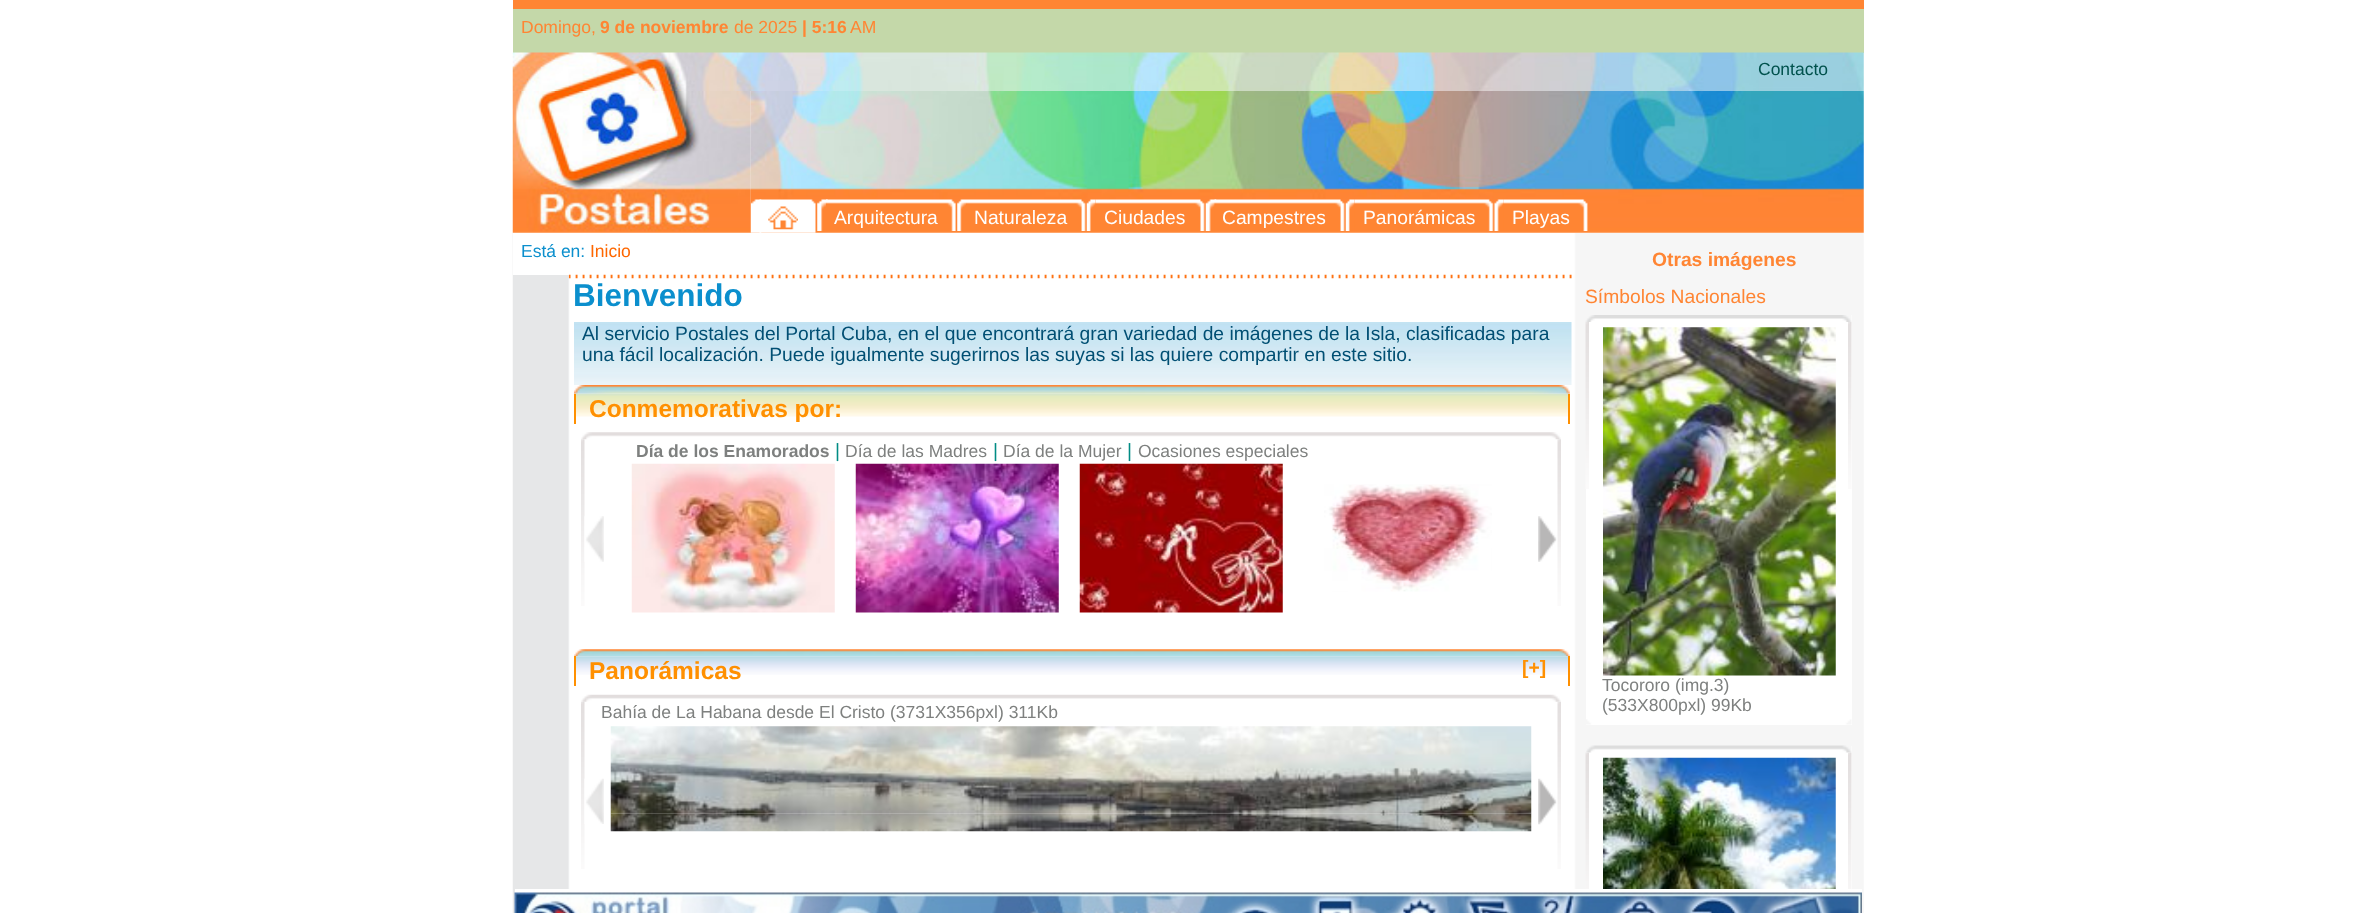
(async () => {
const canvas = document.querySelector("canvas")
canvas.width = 2374
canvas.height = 913
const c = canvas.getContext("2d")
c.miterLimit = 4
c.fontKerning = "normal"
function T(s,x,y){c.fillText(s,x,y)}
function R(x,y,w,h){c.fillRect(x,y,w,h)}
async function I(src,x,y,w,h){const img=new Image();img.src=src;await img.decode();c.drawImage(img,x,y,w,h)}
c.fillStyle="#fff"
R(0,0,2374,913)
c.fillStyle="#ff8533"
R(513,0,1351,9)
c.fillStyle="#c4d8a9"
R(513,9,1351,44)
c.font="17.5px Liberation Sans"
c.fillStyle="#ff8533"
T("Domingo,",521,33)
c.font="bold 17.5px Liberation Sans"
T("9 de noviembre",600,33)
c.font="17.5px Liberation Sans"
T("de 2025",734,33)
c.font="bold 17.5px Liberation Sans"
T("| 5:16",802,33)
c.font="17.5px Liberation Sans"
T("AM",850,33)
await I("1.png",512,52,1352,39)
c.fillStyle="#01524d"
T("Contacto",1758,75)
await I("19.png",512,232,1352,681)
await I("2.png",512,91,239,142)
await I("3.png",750,91,1114,142)
await I("4.png",750,199,12,34)
await I("5.png",759,199,57,34)
await I("6.png",768,206,30,24)
await I("7.png",817,199,11,32)
await I("8.png",826,199,130,32)
c.font="19.25px Liberation Sans"
c.fillStyle="#fff"
T("Arquitectura",834,224)
await I("9.png",957,199,9,32)
await I("10.png",966,199,120,32)
T("Naturaleza",974,224)
await I("11.png",1086,199,10,32)
await I("12.png",1095,199,110,32)
T("Ciudades",1104,224)
await I("13.png",1205,199,12,32)
await I("14.png",1214,199,131,32)
T("Campestres",1222,224)
await I("15.png",1345,199,10,32)
await I("16.png",1354,199,140,32)
T("Panorámicas",1363,224)
await I("17.png",1494,199,10,32)
await I("18.png",1503,199,85,32)
T("Playas",1512,224)
R(513,233,57,42)
c.font="17.5px Liberation Sans"
c.fillStyle="#0b8fcd"
T("Está en:",521,257)
c.fillStyle="#fe6700"
T("Inicio",590,257)
await I("20.png",568,274,1004,5)
c.font="bold 31.5px Liberation Sans"
c.fillStyle="#0b8fcd"
T("Bienvenido",573,306)
await I("21.png",574,322,998,63)
c.font="19.25px Liberation Sans"
c.fillStyle="#014f73"
T("Al servicio Postales del Portal Cuba, en el que encontrará gran variedad de imágenes de la Isla, clasificadas para",582,340)
T("una fácil localización. Puede igualmente sugerirnos las suyas si las quiere compartir en este sitio.",582,361)
await I("22.png",574,385,996,9)
await I("23.png",574,393,996,24)
c.fillStyle="#ff9001"
R(1568,394,2,30)
R(574,394,2,30)
c.font="bold 24.5px Liberation Sans"
T("Conmemorativas por:",589,417)
await I("24.png",581,432,980,8)
await I("25.png",581,439,4,167)
c.font="bold 17.5px Liberation Sans"
c.fillStyle="#7e807f"
T("Día de los Enamorados",636,457)
c.font="19.25px Liberation Sans"
c.fillStyle="#018c84"
T("|",835,457)
c.font="17.5px Liberation Sans"
c.fillStyle="#7e807f"
T("Día de las Madres",845,457)
c.font="19.25px Liberation Sans"
c.fillStyle="#018c84"
T("|",993,457)
c.font="17.5px Liberation Sans"
c.fillStyle="#7e807f"
T("Día de la Mujer",1003,457)
c.font="19.25px Liberation Sans"
c.fillStyle="#018c84"
T("|",1127,457)
c.font="17.5px Liberation Sans"
c.fillStyle="#7e807f"
T("Ocasiones especiales",1138,457)
await I("26.png",584,516,20,46)
await I("27.png",631,463,204,150)
await I("28.png",855,463,204,150)
await I("29.png",1079,463,204,150)
await I("30.png",1324,484,168,108)
await I("31.png",1538,516,19,46)
await I("32.png",1557,439,4,167)
await I("33.png",574,649,996,8)
await I("34.png",576,656,992,19)
c.fillStyle="#ff9001"
R(1568,656,2,30)
R(574,656,2,30)
c.font="bold 24.5px Liberation Sans"
T("Panorámicas",589,679)
c.font="bold 19.25px Liberation Sans"
T("[+]",1522,674)
await I("35.png",581,694,980,8)
await I("36.png",581,701,4,168)
c.font="17.5px Liberation Sans"
c.fillStyle="#7e807f"
T("Bahía de La Habana desde El Cristo (3731X356pxl) 311Kb",601,718)
await I("37.png",584,778,20,46)
await I("38.png",610,726,922,88)
await I("39.png",610,813,922,19)
await I("40.png",1538,778,19,47)
await I("41.png",1557,701,4,168)
c.font="bold 19.25px Liberation Sans"
c.fillStyle="#ff8533"
T("Otras imágenes",1652,266)
c.font="19.25px Liberation Sans"
T("Símbolos Nacionales",1585,303)
c.fillStyle="#fff"
R(1586,315,266,410)
await I("42.png",1585,315,267,7)
await I("43.png",1585,322,4,167)
await I("44.png",1848,322,4,167)
await I("45.png",1603,327,233,349)
c.font="17.5px Liberation Sans"
c.fillStyle="#7e807f"
T("Tocororo (img.3)",1602,691)
T("(533X800pxl) 99Kb",1602,711)
await I("46.png",1586,719,266,6)
c.fillStyle="#fff"
R(1586,746,266,143)
await I("47.png",1586,745,266,8)
await I("48.png",1585,752,4,137)
await I("49.png",1603,757,233,132)
await I("50.png",1848,752,4,137)
R(515,889,1347,4)
await I("51.png",514,892,1348,21)
})()
